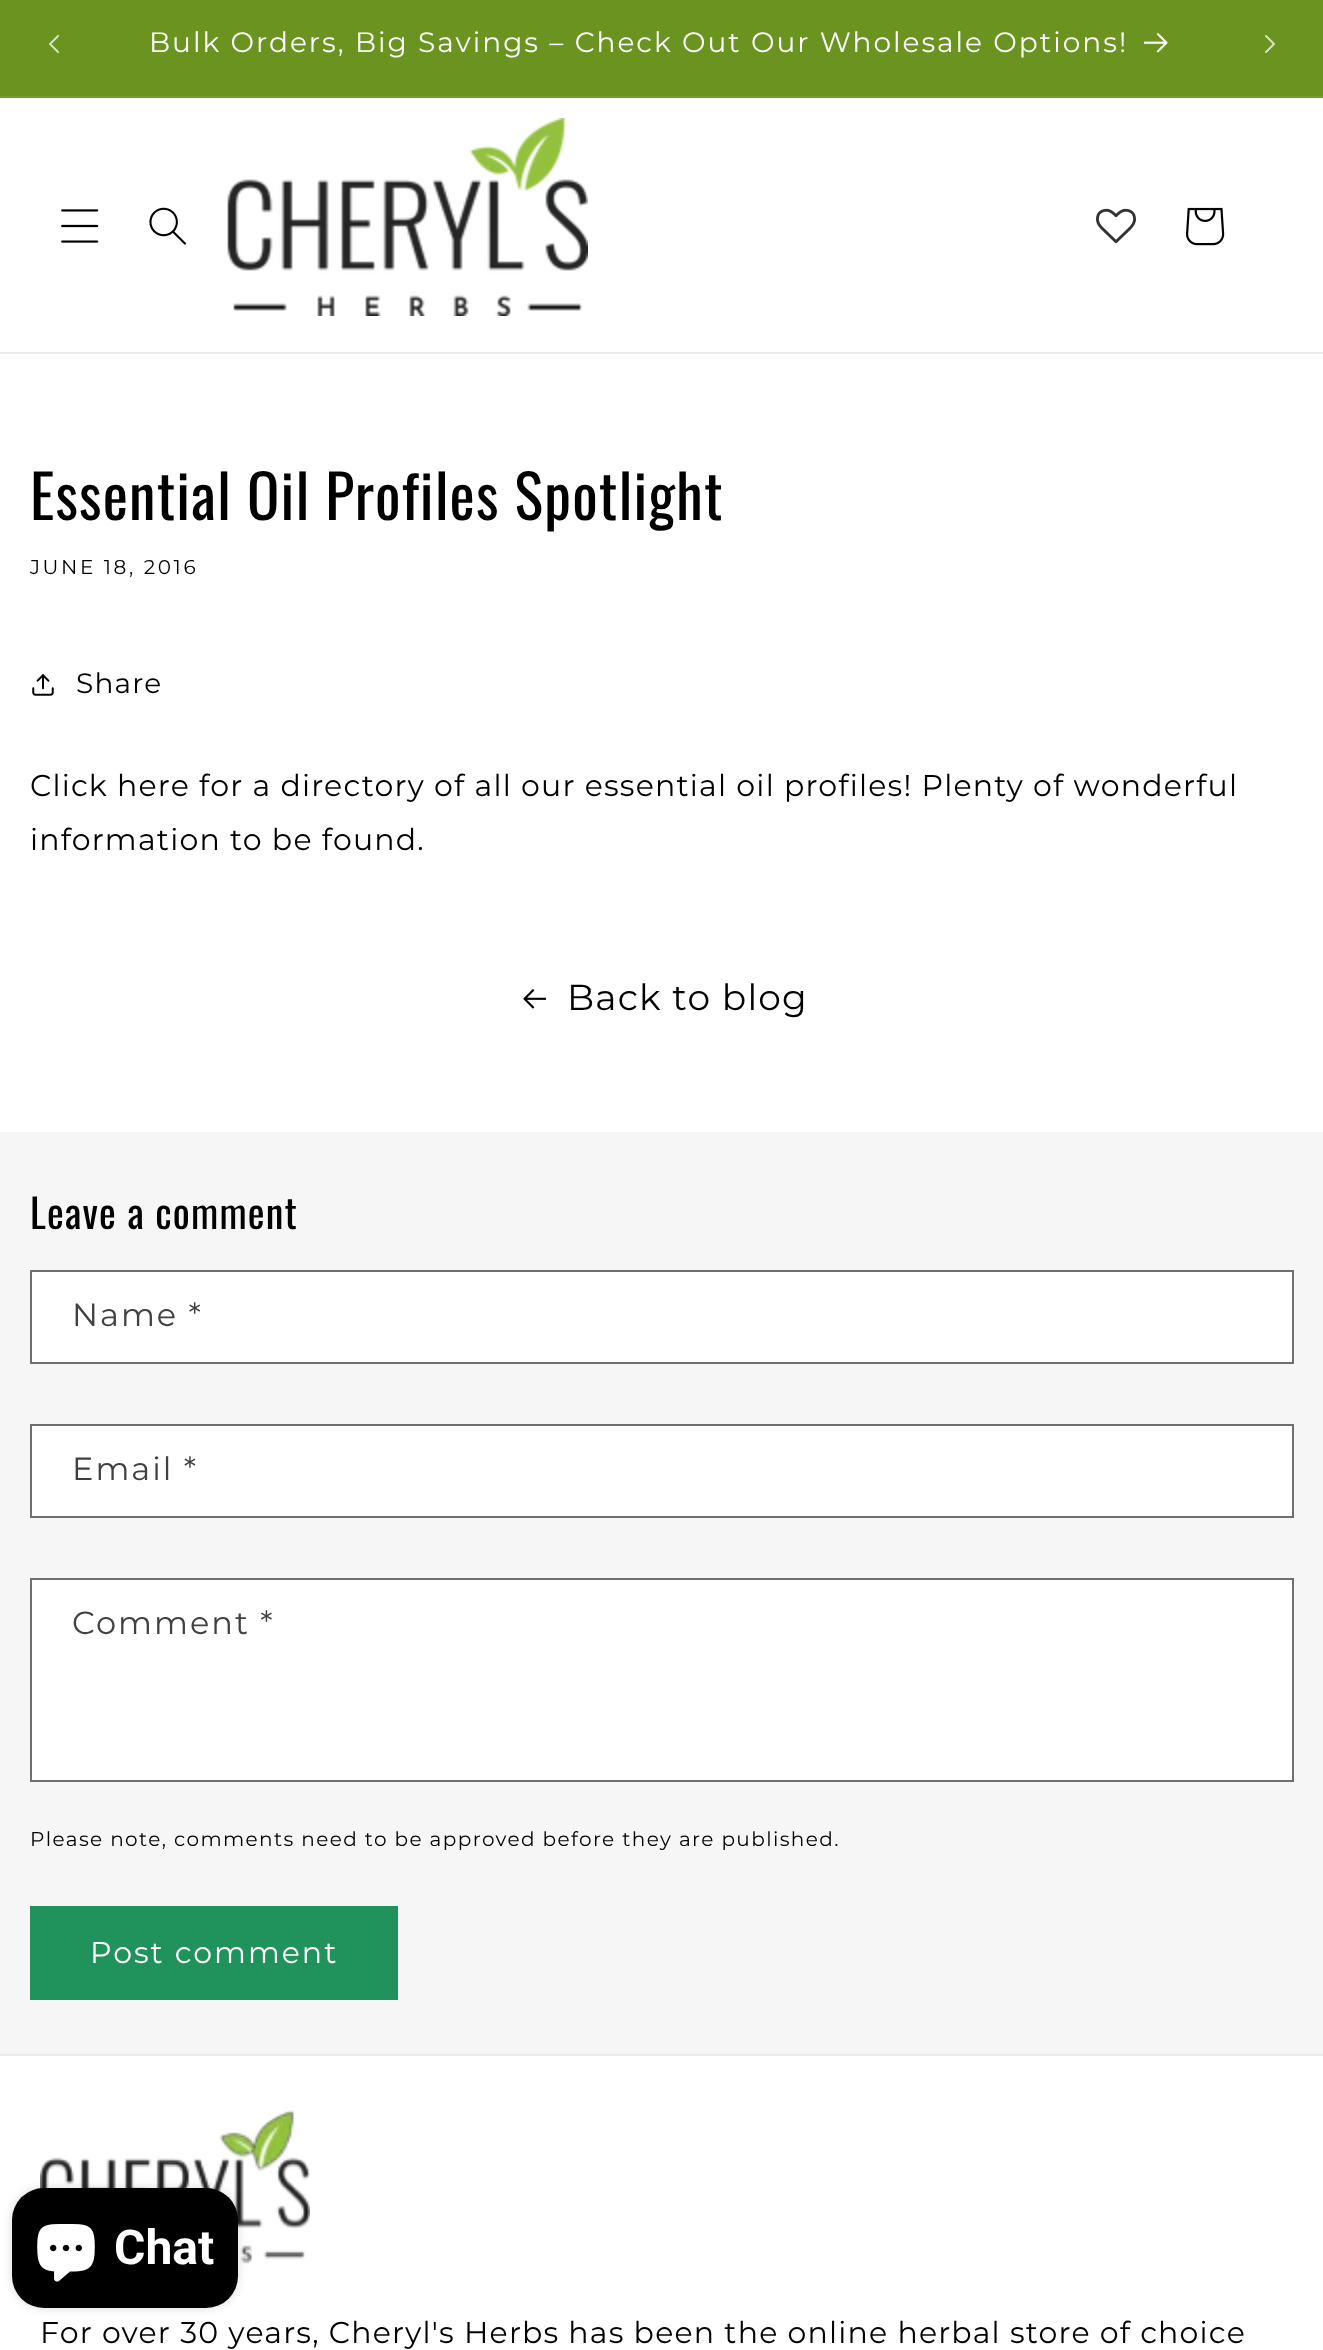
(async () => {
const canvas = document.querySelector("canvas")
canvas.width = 1323
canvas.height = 2350
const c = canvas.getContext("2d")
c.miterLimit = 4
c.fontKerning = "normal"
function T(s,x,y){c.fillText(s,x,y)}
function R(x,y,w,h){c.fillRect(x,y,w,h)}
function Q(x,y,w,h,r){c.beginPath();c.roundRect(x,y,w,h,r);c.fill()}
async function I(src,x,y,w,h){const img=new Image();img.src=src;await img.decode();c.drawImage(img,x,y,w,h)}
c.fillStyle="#fff"
R(0,0,1323,2350)
c.fillStyle="#6a9320"
R(0,0,1323,96)
c.fillStyle="#769c32"
R(0,96,1323,2)
await I("1.png",49,35,10,18)
c.letterSpacing="2px"
c.font="28px Montserrat"
c.fillStyle="#fff"
T("Bulk Orders, Big Savings – Check Out Our Wholesale Options!",149,52)
await I("2.png",1144,33,24,20)
await I("3.png",1265,35,10,18)
c.fillStyle="#ebebeb"
R(0,352,1323,2)
await I("4.png",61,209,38,34)
await I("5.png",149,207,37,38)
await I("6.png",227,118,361,198)
await I("7.png",1096,208,40,36)
await I("8.png",1186,207,39,39)
c.letterSpacing="1.2px"
c.font="60px Oswald"
c.fillStyle="#000"
T("Essential Oil Profiles Spotlight",30,520)
c.letterSpacing="2.6px"
c.font="20px Montserrat"
T("JUNE 18, 2016",30,574)
await I("9.png",32,674,22,22)
c.letterSpacing="1.2px"
c.font="28px Montserrat"
T("Share",76,693)
c.font="30px Montserrat"
T("Click here for a directory of all our essential oil profiles! Plenty of wonderful",30,796)
T("information to be found.",30,850)
await I("10.png",523,989,23,20)
c.font="36px Montserrat"
T("Back to blog",567,1010)
c.fillStyle="#f6f6f6"
R(0,1132,1323,922)
c.font="40px Oswald"
c.fillStyle="#000"
T("Leave a comment",30,1229)
c.fillStyle="#fff"
R(32,1272,1260,90)
c.strokeStyle="#6f6f6f"
c.lineWidth=2
c.strokeRect(31,1271,1262,92)
c.letterSpacing="2px"
c.font="32px Montserrat"
c.fillStyle="#404040"
T("Name *",72,1326)
c.fillStyle="#fff"
R(32,1426,1260,90)
c.strokeRect(31,1425,1262,92)
c.fillStyle="#404040"
T("Email *",72,1480)
c.fillStyle="#fff"
R(32,1580,1260,200)
c.strokeRect(31,1579,1262,202)
c.fillStyle="#404040"
T("Comment *",72,1634)
c.letterSpacing="1.4px"
c.font="20px Montserrat"
c.fillStyle="#000"
T("Please note, comments need to be approved before they are published.",30,1846)
c.fillStyle="#20935c"
R(30,1906,368,94)
c.letterSpacing="2px"
c.font="30px Montserrat"
c.fillStyle="#fff"
T("Post comment",90,1963)
await I("12.png",40,2110,270,154)
c.fillStyle="#00000026"
c.filter="blur(5px)"
c.beginPath()
c.roundRect(12,2188,226,120,32)
c.fill()
c.filter="none"
c.fillStyle="#000"
Q(12,2188,226,120,32)
await I("11.png",37,2224,58,58)
c.letterSpacing="0px"
c.font="bold 48px Roboto"
c.fillStyle="#fff"
T("Chat",114,2264)
c.fillStyle="#ebebeb"
R(0,2054,1323,2)
c.letterSpacing="1.2px"
c.font="30px Montserrat"
c.fillStyle="#000"
T("For over 30 years, Cheryl's Herbs has been the online herbal store of choice",40,2343)
})()
